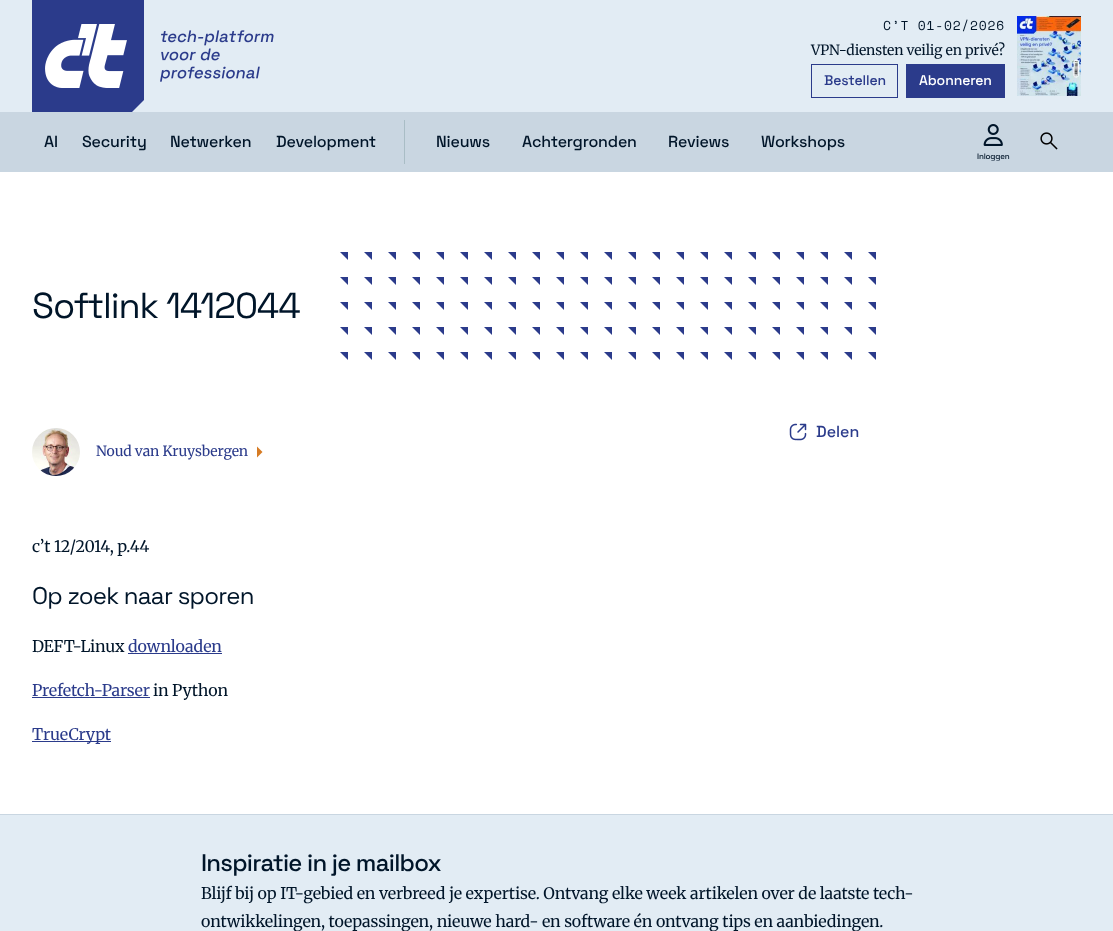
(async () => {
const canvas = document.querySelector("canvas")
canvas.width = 1113
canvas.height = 931
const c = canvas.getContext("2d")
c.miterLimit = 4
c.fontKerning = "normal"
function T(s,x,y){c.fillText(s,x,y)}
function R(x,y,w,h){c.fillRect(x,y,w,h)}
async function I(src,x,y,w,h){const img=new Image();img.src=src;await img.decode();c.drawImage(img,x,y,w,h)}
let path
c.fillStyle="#fff"
R(0,0,1113,931)
c.fillStyle="#e2ecf4"
R(0,0,1113,112)
await I("1.png",32,0,112,112)
await I("2.png",160,30,114,52)
c.letterSpacing="0.75px"
c.font="13px Space Mono"
c.fillStyle="#001529"
T("C’T 01-02/2026",883,30)
c.letterSpacing="-0.15px"
c.font="300 14px Merriweather"
T("VPN-diensten veilig en privé?",811,55)
c.strokeStyle="#2b3b8b"
c.strokeRect(811.5,64.5,86,33)
c.letterSpacing="-0.1px"
c.font="300 14px 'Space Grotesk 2'"
c.fillStyle="#2b3b8b"
T("Bestellen",824,85)
R(906,64,99,34)
c.fillStyle="#fff"
T("Abonneren",919,85)
await I("3.png",1017,16,64,80)
c.fillStyle="#c9d6e1"
R(0,112,1113,60)
c.letterSpacing="-0.15px"
c.font="300 16px 'Space Grotesk 2'"
c.fillStyle="#001529"
T("AI",44,147)
T("Security",82,147)
T("Netwerken",170,147)
T("Development",276,147)
c.fillStyle="#a9bdc5"
R(404,120,1,44)
c.fillStyle="#001529"
T("Nieuws",436,147)
T("Achtergronden",522,147)
T("Reviews",668,147)
T("Workshops",761,147)
await I("4.png",1040,132,18,18)
await I("5.png",983,124,20,22)
c.font="300 8px 'Space Grotesk 2'"
T("Inloggen",977,159)
c.letterSpacing="-1.1px"
c.font="300 36px Space Grotesk"
T("Softlink 1412044",32,318)
await I("6.png",340,252,536,108)
await I("7.png",789,423,18,18)
c.letterSpacing="0px"
c.font="300 16px 'Space Grotesk 2'"
c.fillStyle="#2b3b8b"
T("Delen",816,437)
await I("8.png",32,428,48,48)
c.letterSpacing="-0.1px"
c.font="300 14px Merriweather"
T("Noud van Kruysbergen",96,456)
c.fillStyle="#d67b24"
path = new Path2D("M257 457.5v-11l5.5 5.5z")
c.fill(path)
c.letterSpacing="-0.15px"
c.font="300 16px Merriweather"
c.fillStyle="#001529"
T("c’t 12/2014, p.44",32,552)
c.letterSpacing="-0.75px"
c.font="300 24px Space Grotesk"
T("Op zoek naar sporen",32,604)
c.letterSpacing="-0.15px"
c.font="300 16px Merriweather"
T("DEFT-Linux",32,652)
c.fillStyle="#2b3b8b"
T("downloaden",128,652)
R(128,653,94,1)
T("Prefetch-Parser",32,696)
R(32,697,118,1)
c.fillStyle="#001529"
T("in Python",153,696)
c.fillStyle="#2b3b8b"
R(32,741,79,1)
T("TrueCrypt",32,740)
c.fillStyle="#e2ecf4"
R(0,815,1113,116)
c.fillStyle="#c9d6e1"
R(0,814,1113,1)
c.letterSpacing="-0.75px"
c.font="300 24px 'Space Grotesk 2'"
c.fillStyle="#001529"
T("Inspiratie in je mailbox",201,871)
c.letterSpacing="-0.15px"
c.font="300 16px Merriweather"
T("Blijf bij op IT-gebied en verbreed je expertise. Ontvang elke week artikelen over de laatste tech-",201,899)
T("ontwikkelingen, toepassingen, nieuwe hard- en software én ontvang tips en aanbiedingen.",201,927)
})()
